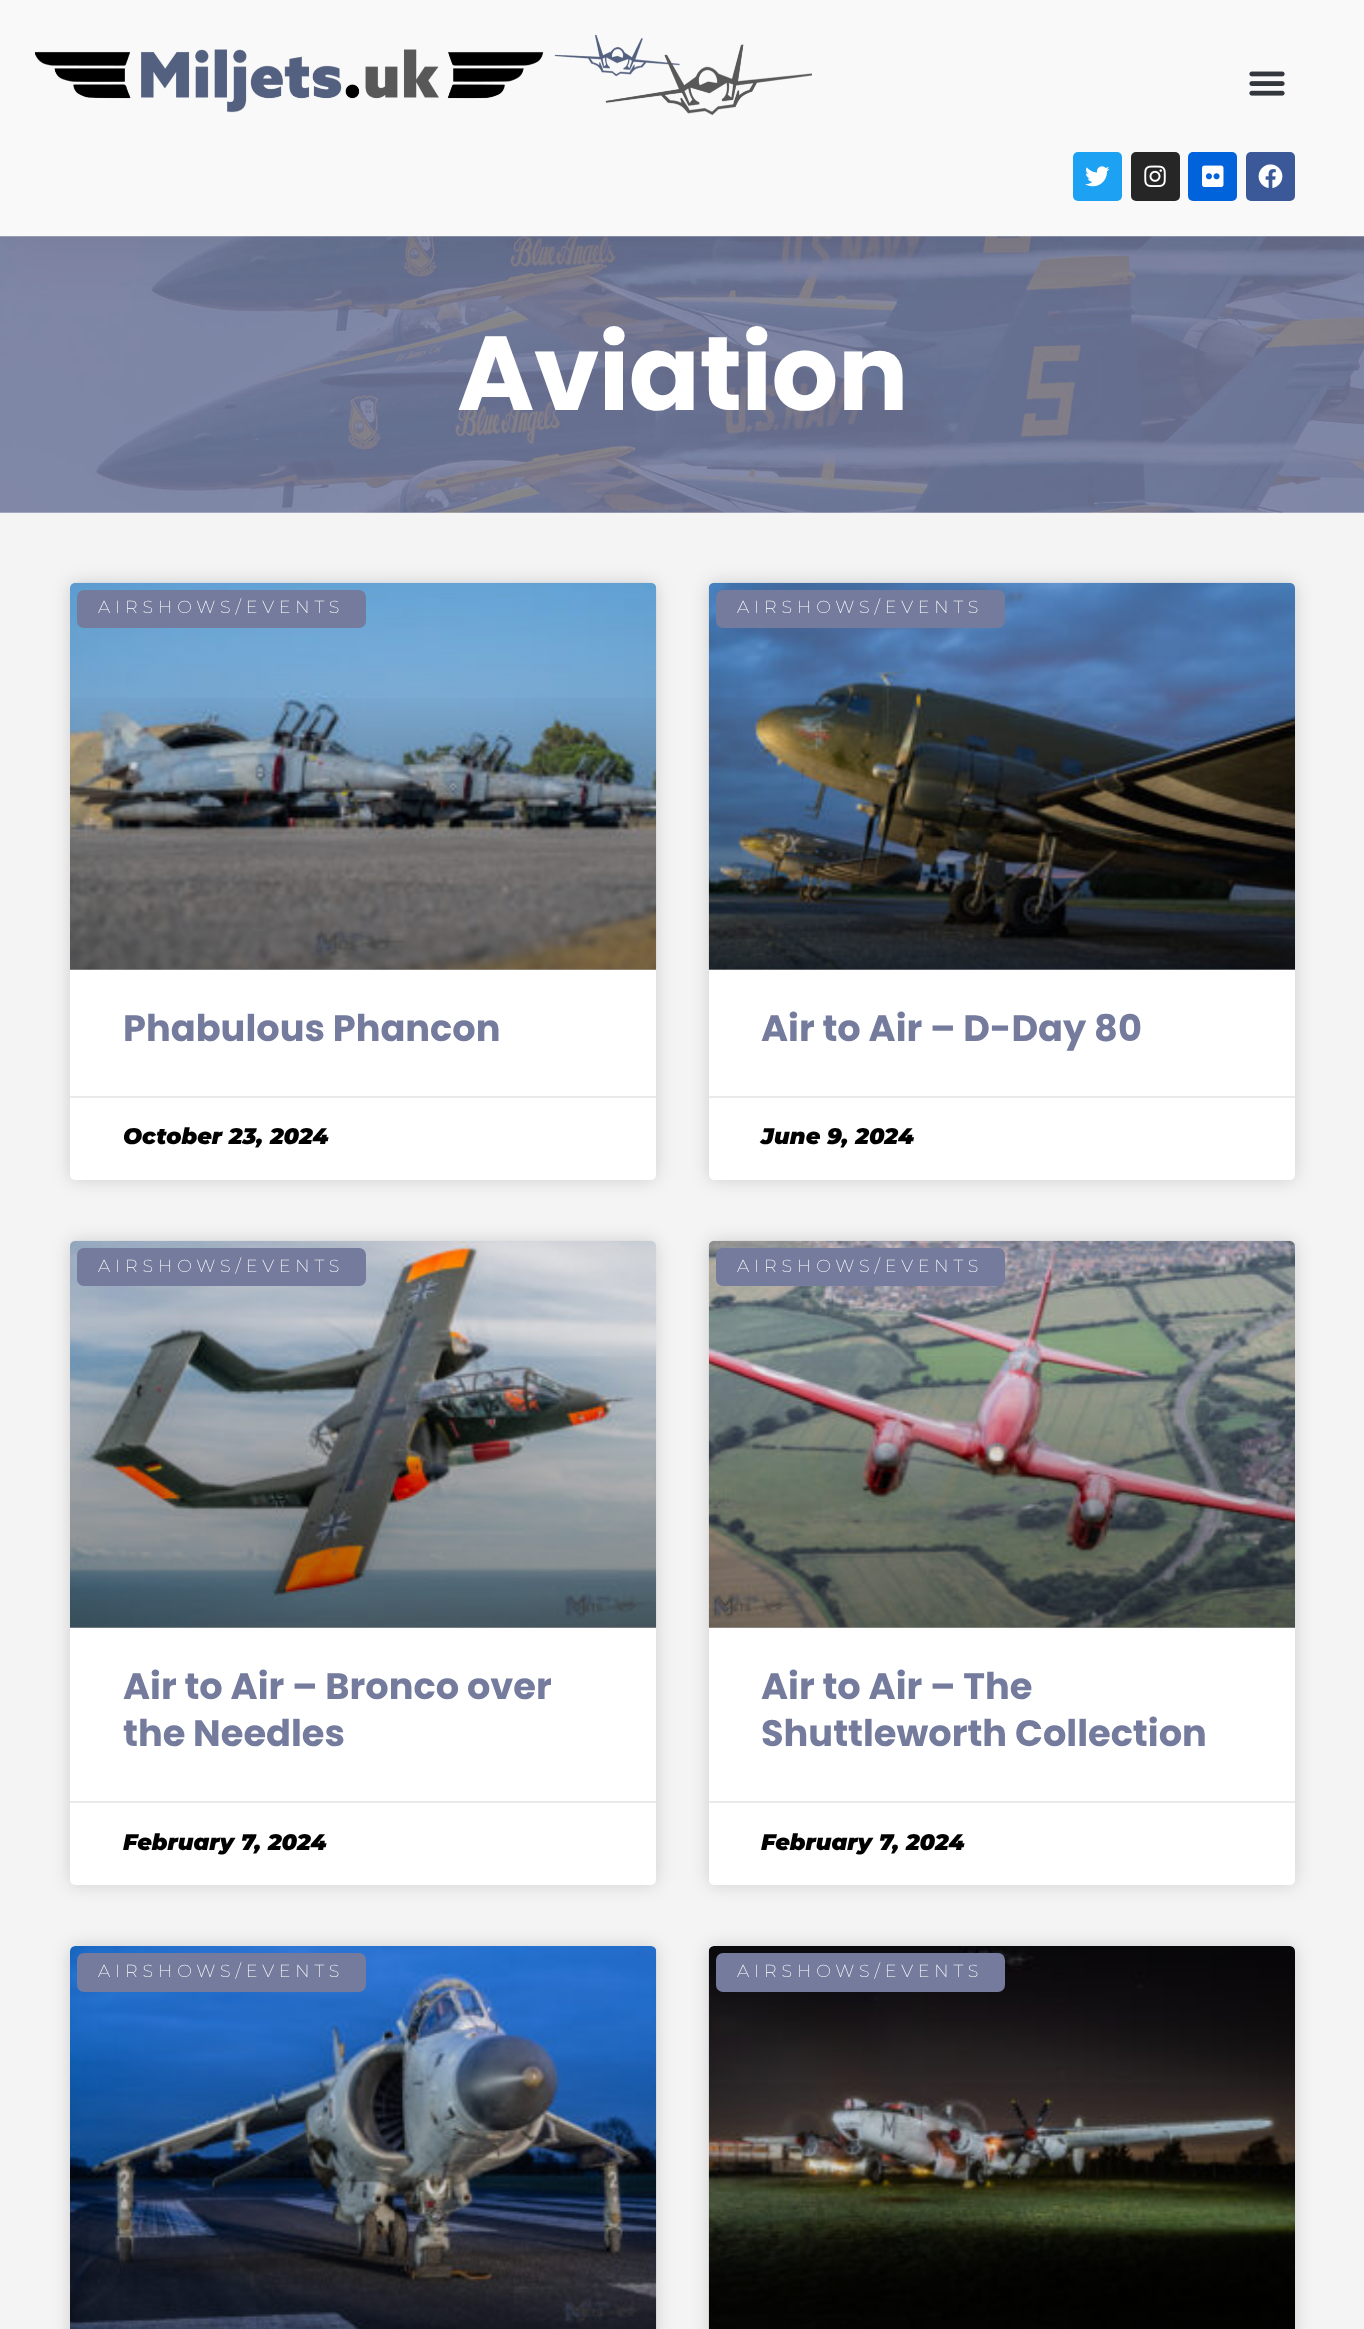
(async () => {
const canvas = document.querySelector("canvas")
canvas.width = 1364
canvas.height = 2329
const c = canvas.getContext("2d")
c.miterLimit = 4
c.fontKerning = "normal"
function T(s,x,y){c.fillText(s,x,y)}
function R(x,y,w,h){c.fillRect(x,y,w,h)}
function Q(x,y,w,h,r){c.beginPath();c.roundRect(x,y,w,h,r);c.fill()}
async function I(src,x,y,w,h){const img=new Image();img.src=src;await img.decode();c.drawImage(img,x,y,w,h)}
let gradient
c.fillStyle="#fff"
R(0,0,1364,2329)
await I("7.png",0,236,1364,277)
c.fillStyle="#0000001a"
c.filter="blur(33px)"
c.beginPath()
c.rect(0,0,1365,236)
c.fill()
c.filter="none"
c.fillStyle="#f9f9f9"
R(0,0,1364,236)
await I("1.png",35,35,777,81)
await I("2.png",1249,71,36,25)
c.fillStyle="#1da1f2"
Q(1073,152,49,49,5)
await I("3.png",1085,166,25,21)
c.fillStyle="#262626"
Q(1131,152,49,49,5)
await I("4.png",1144,165,22,22)
c.fillStyle="#0063dc"
Q(1188,152,49,49,5)
await I("5.png",1202,165,22,22)
c.fillStyle="#3b5998"
Q(1246,152,49,49,5)
await I("6.png",1258,164,25,24)
c.letterSpacing="-0.75px"
c.font="bold 105px Poppins"
c.fillStyle="#fff"
T("Aviation",457,410)
c.fillStyle="#f4f4f4"
R(0,513,1364,1816)
c.fillStyle="#00000026"
c.filter="blur(9px)"
c.beginPath()
c.roundRect(70,583,586,597,5)
c.fill()
c.filter="none"
c.fillStyle="#fff"
Q(70,583,586,597,5)
await I("8.png",70,582,587,388)
gradient = c.createLinearGradient(363,970,363,583)
gradient.addColorStop(0,"#00000059")
gradient.addColorStop(.75,"#00000000")
c.fillStyle = gradient
R(70,698,586,272)
c.fillStyle="#747b9c"
Q(77,590,289,38,7)
c.letterSpacing="4.9px"
c.font="100 17.5px Montserrat"
c.fillStyle="#fff"
T("AIRSHOWS/EVENTS",98,613)
c.letterSpacing="0px"
c.font="bold 36.75px Poppins"
c.fillStyle="#747b9c"
T("Phabulous Phancon",123,1041)
c.fillStyle="#eaeaea"
R(70,1096,586,2)
c.font="italic 100 22.5px Montserrat"
c.fillStyle="#000"
T("October 23, 2024",123,1144)
c.fillStyle="#00000026"
c.filter="blur(9px)"
c.beginPath()
c.roundRect(709,583,586,597,5)
c.fill()
c.filter="none"
c.fillStyle="#fff"
Q(709,583,586,597,5)
await I("9.png",708,582,587,388)
gradient = c.createLinearGradient(1002,970,1002,583)
gradient.addColorStop(0,"#00000059")
gradient.addColorStop(.75,"#00000000")
c.fillStyle = gradient
R(709,698,586,272)
c.fillStyle="#747b9c"
Q(716,590,289,38,7)
c.letterSpacing="4.9px"
c.font="100 17.5px Montserrat"
c.fillStyle="#fff"
T("AIRSHOWS/EVENTS",737,613)
c.letterSpacing="0px"
c.font="bold 36.75px Poppins"
c.fillStyle="#747b9c"
T("Air to Air – D-Day 80",761,1041)
c.fillStyle="#eaeaea"
R(709,1096,586,2)
c.font="italic 100 22.5px Montserrat"
c.fillStyle="#000"
T("June 9, 2024",761,1144)
c.fillStyle="#00000026"
c.filter="blur(9px)"
c.beginPath()
c.roundRect(70,1241,586,644,5)
c.fill()
c.filter="none"
c.fillStyle="#fff"
Q(70,1241,586,644,5)
await I("10.png",70,1240,587,388)
gradient = c.createLinearGradient(363,1628,363,1241)
gradient.addColorStop(0,"#00000059")
gradient.addColorStop(.75,"#00000000")
c.fillStyle = gradient
R(70,1356,586,272)
c.fillStyle="#747b9c"
Q(77,1248,289,38,7)
c.letterSpacing="4.9px"
c.font="100 17.5px Montserrat"
c.fillStyle="#fff"
T("AIRSHOWS/EVENTS",98,1272)
c.letterSpacing="0px"
c.font="bold 36.75px Poppins"
c.fillStyle="#747b9c"
T("Air to Air – Bronco over",123,1699)
T("the Needles",123,1746)
c.fillStyle="#eaeaea"
R(70,1801,586,2)
c.font="italic 100 22.5px Montserrat"
c.fillStyle="#000"
T("February 7, 2024",123,1850)
c.fillStyle="#00000026"
c.filter="blur(9px)"
c.beginPath()
c.roundRect(709,1241,586,644,5)
c.fill()
c.filter="none"
c.fillStyle="#fff"
Q(709,1241,586,644,5)
await I("11.png",708,1240,587,388)
gradient = c.createLinearGradient(1002,1628,1002,1241)
gradient.addColorStop(0,"#00000059")
gradient.addColorStop(.75,"#00000000")
c.fillStyle = gradient
R(709,1356,586,272)
c.fillStyle="#747b9c"
Q(716,1248,289,38,7)
c.letterSpacing="4.9px"
c.font="100 17.5px Montserrat"
c.fillStyle="#fff"
T("AIRSHOWS/EVENTS",737,1272)
c.letterSpacing="0px"
c.font="bold 36.75px Poppins"
c.fillStyle="#747b9c"
T("Air to Air – The",761,1699)
T("Shuttleworth Collection",761,1746)
c.fillStyle="#eaeaea"
R(709,1801,586,2)
c.font="italic 100 22.5px Montserrat"
c.fillStyle="#000"
T("February 7, 2024",761,1850)
c.fillStyle="#00000026"
c.filter="blur(9px)"
c.beginPath()
c.roundRect(70,1946,586,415,5)
c.fill()
c.filter="none"
c.fillStyle="#fff"
Q(70,1946,586,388,5)
await I("12.png",70,1946,587,383)
gradient = c.createLinearGradient(363,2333,363,1946)
gradient.addColorStop(0,"#00000059")
gradient.addColorStop(.75,"#00000000")
c.fillStyle = gradient
R(70,2061,586,268)
c.fillStyle="#747b9c"
Q(77,1953,289,39,7)
c.letterSpacing="4.9px"
c.font="100 17.5px Montserrat"
c.fillStyle="#fff"
T("AIRSHOWS/EVENTS",98,1977)
c.fillStyle="#00000026"
c.filter="blur(9px)"
c.beginPath()
c.roundRect(709,1946,586,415,5)
c.fill()
c.filter="none"
c.fillStyle="#fff"
Q(709,1946,586,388,5)
await I("13.png",708,1946,587,383)
gradient = c.createLinearGradient(1002,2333,1002,1946)
gradient.addColorStop(0,"#00000059")
gradient.addColorStop(.75,"#00000000")
c.fillStyle = gradient
R(709,2083,586,231)
c.fillStyle="#747b9c"
Q(716,1953,289,39,7)
c.fillStyle="#fff"
T("AIRSHOWS/EVENTS",737,1977)
})()
